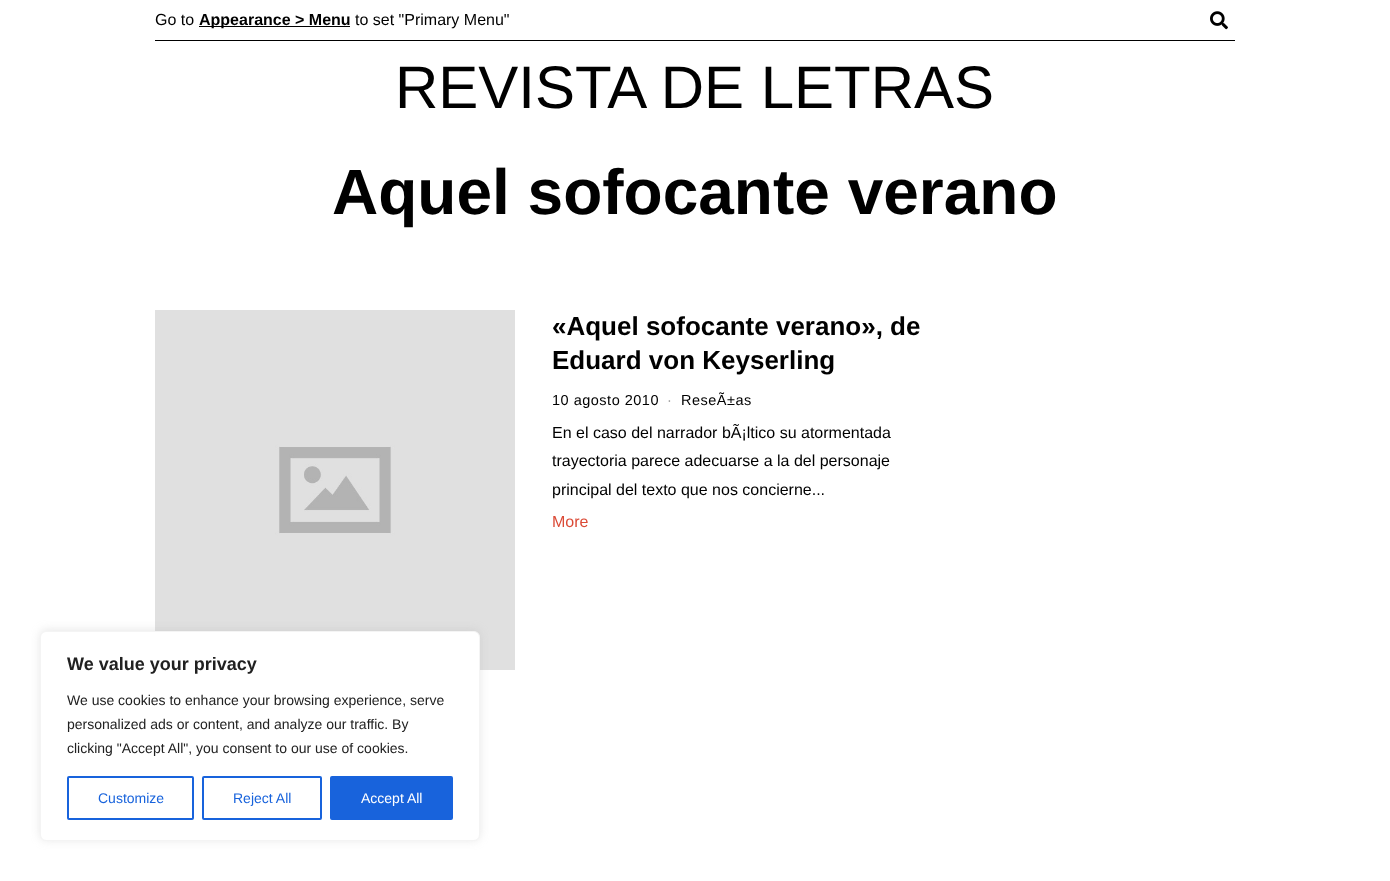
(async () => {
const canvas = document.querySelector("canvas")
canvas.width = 1390
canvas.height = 881
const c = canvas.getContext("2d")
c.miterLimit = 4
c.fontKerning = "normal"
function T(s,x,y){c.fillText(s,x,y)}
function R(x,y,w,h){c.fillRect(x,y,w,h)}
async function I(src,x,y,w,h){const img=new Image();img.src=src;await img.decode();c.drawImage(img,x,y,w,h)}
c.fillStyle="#fff"
R(0,0,1390,881)
c.fillStyle="#000"
R(155,40,1080,1)
c.font="16px Liberation Sans"
T("Go to",155,25)
R(199,26,151,1)
c.font="bold 16px Liberation Sans"
T("Appearance > Menu",199,25)
c.font="16px Liberation Sans"
T("to set \"Primary Menu\"",355,25)
await I("1.png",1210,11,18,19)
c.font="60px Liberation Sans"
T("REVISTA DE LETRAS",395,108)
c.font="bold 64px Liberation Sans"
T("Aquel sofocante verano",332,214)
await I("2.png",155,310,360,360)
c.font="bold 26px Liberation Sans"
T("«Aquel sofocante verano», de",552,335)
T("Eduard von Keyserling",552,369)
c.letterSpacing="0.5px"
c.font="14.5px Liberation Sans"
T("10 agosto 2010",552,405)
c.fillStyle="#999"
T("·",667,405)
c.fillStyle="#000"
T("ReseÃ±as",681,405)
c.letterSpacing="0px"
c.font="16px Liberation Sans"
T("En el caso del narrador bÃ¡ltico su atormentada",552,438)
T("trayectoria parece adecuarse a la del personaje",552,466)
T("principal del texto que nos concierne...",552,495)
c.fillStyle="#db4a36"
T("More",552,527)
c.fillStyle="#acabab4d"
c.filter="blur(5px)"
c.beginPath()
c.roundRect(40,630,440,210,6)
c.fill()
c.filter="none"
c.fillStyle="#fff"
c.beginPath()
c.roundRect(40.5,631.5,439,209,5.5)
c.fill()
c.strokeStyle="#f4f4f4"
c.stroke()
c.font="bold 18px Liberation Sans"
c.fillStyle="#212121"
T("We value your privacy",67,670)
c.font="14px Liberation Sans"
T("We use cookies to enhance your browsing experience, serve",67,705)
T("personalized ads or content, and analyze our traffic. By",67,729)
T("clicking \"Accept All\", you consent to our use of cookies.",67,753)
c.beginPath()
c.roundRect(68,777,125,42,1)
c.strokeStyle="#1863dc"
c.lineWidth=2
c.stroke()
c.fillStyle="#1863dc"
T("Customize",98,803)
c.beginPath()
c.roundRect(203,777,118,42,1)
c.stroke()
T("Reject All",233,803)
c.beginPath()
c.roundRect(331,777,121,42,1)
c.fill()
c.stroke()
c.fillStyle="#fff"
T("Accept All",361,803)
})()
